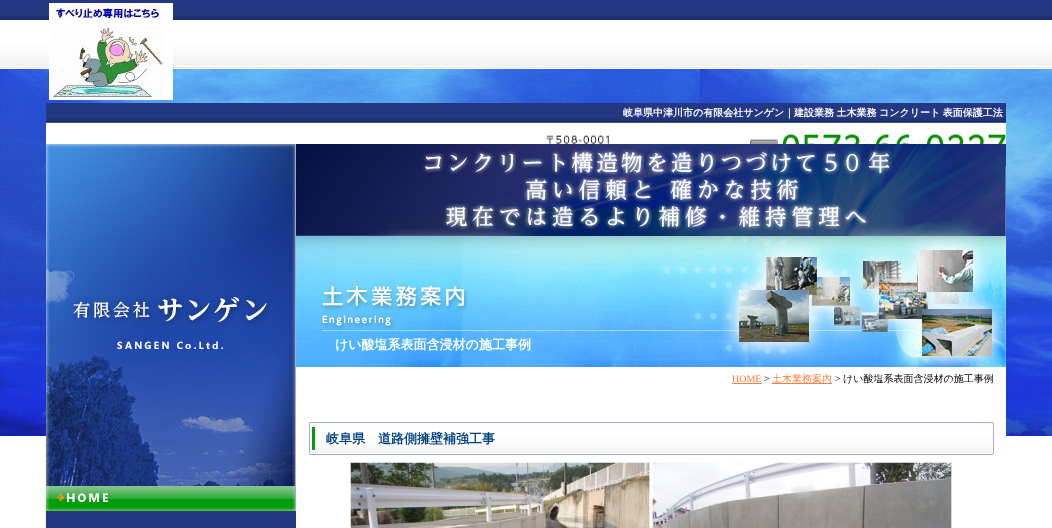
(async () => {
const canvas = document.querySelector("canvas")
canvas.width = 1052
canvas.height = 528
const c = canvas.getContext("2d")
c.miterLimit = 4
c.fontKerning = "normal"
function T(s,x,y){c.fillText(s,x,y)}
function R(x,y,w,h){c.fillRect(x,y,w,h)}
async function I(src,x,y,w,h){const img=new Image();img.src=src;await img.decode();c.drawImage(img,x,y,w,h)}
c.fillStyle="#fff"
R(0,0,1052,528)
await I("1.png",0,0,1052,440)
await I("2.png",49,3,124,97)
await I("3.png",46,103,960,41)
c.wordSpacing="-0.5px"
c.font="bold 10px WenQuanYi Zen Hei"
T("岐阜県中津川市の有限会社サンゲン｜建設業務 土木業務 コンクリート 表面保護工法",623,116)
c.fillStyle="#233882"
R(46,511,250,17)
await I("4.png",46,144,250,367)
await I("5.png",57,527,131,1)
c.fillStyle="#fff"
R(296,367,710,73)
await I("6.png",296,144,710,192)
await I("7.png",296,336,710,31)
c.wordSpacing="0px"
c.font="bold 13px WenQuanYi Zen Hei"
T("けい酸塩系表面含浸材の施工事例",335,349)
c.font="10px Liberation Serif"
c.fillStyle="#ff8040"
T("HOME",732,382)
R(732,383,30,1)
c.fillStyle="#000"
T(">",764,382)
c.fillStyle="#ff8040"
R(772,383,60,1)
c.font="500 10px WenQuanYi Zen Hei"
T("土木業務案内",772,382)
c.font="10px Liberation Serif"
c.fillStyle="#000"
T(">",835,382)
c.font="500 10px WenQuanYi Zen Hei"
T("けい酸塩系表面含浸材の施工事例",843,382)
await I("8.png",309,422,685,33)
c.font="bold 13px WenQuanYi Zen Hei"
c.fillStyle="#004080"
T("岐阜県　道路側擁壁補強工事",326,443)
await I("9.png",350,462,300,66)
await I("10.png",652,462,300,66)
})()
